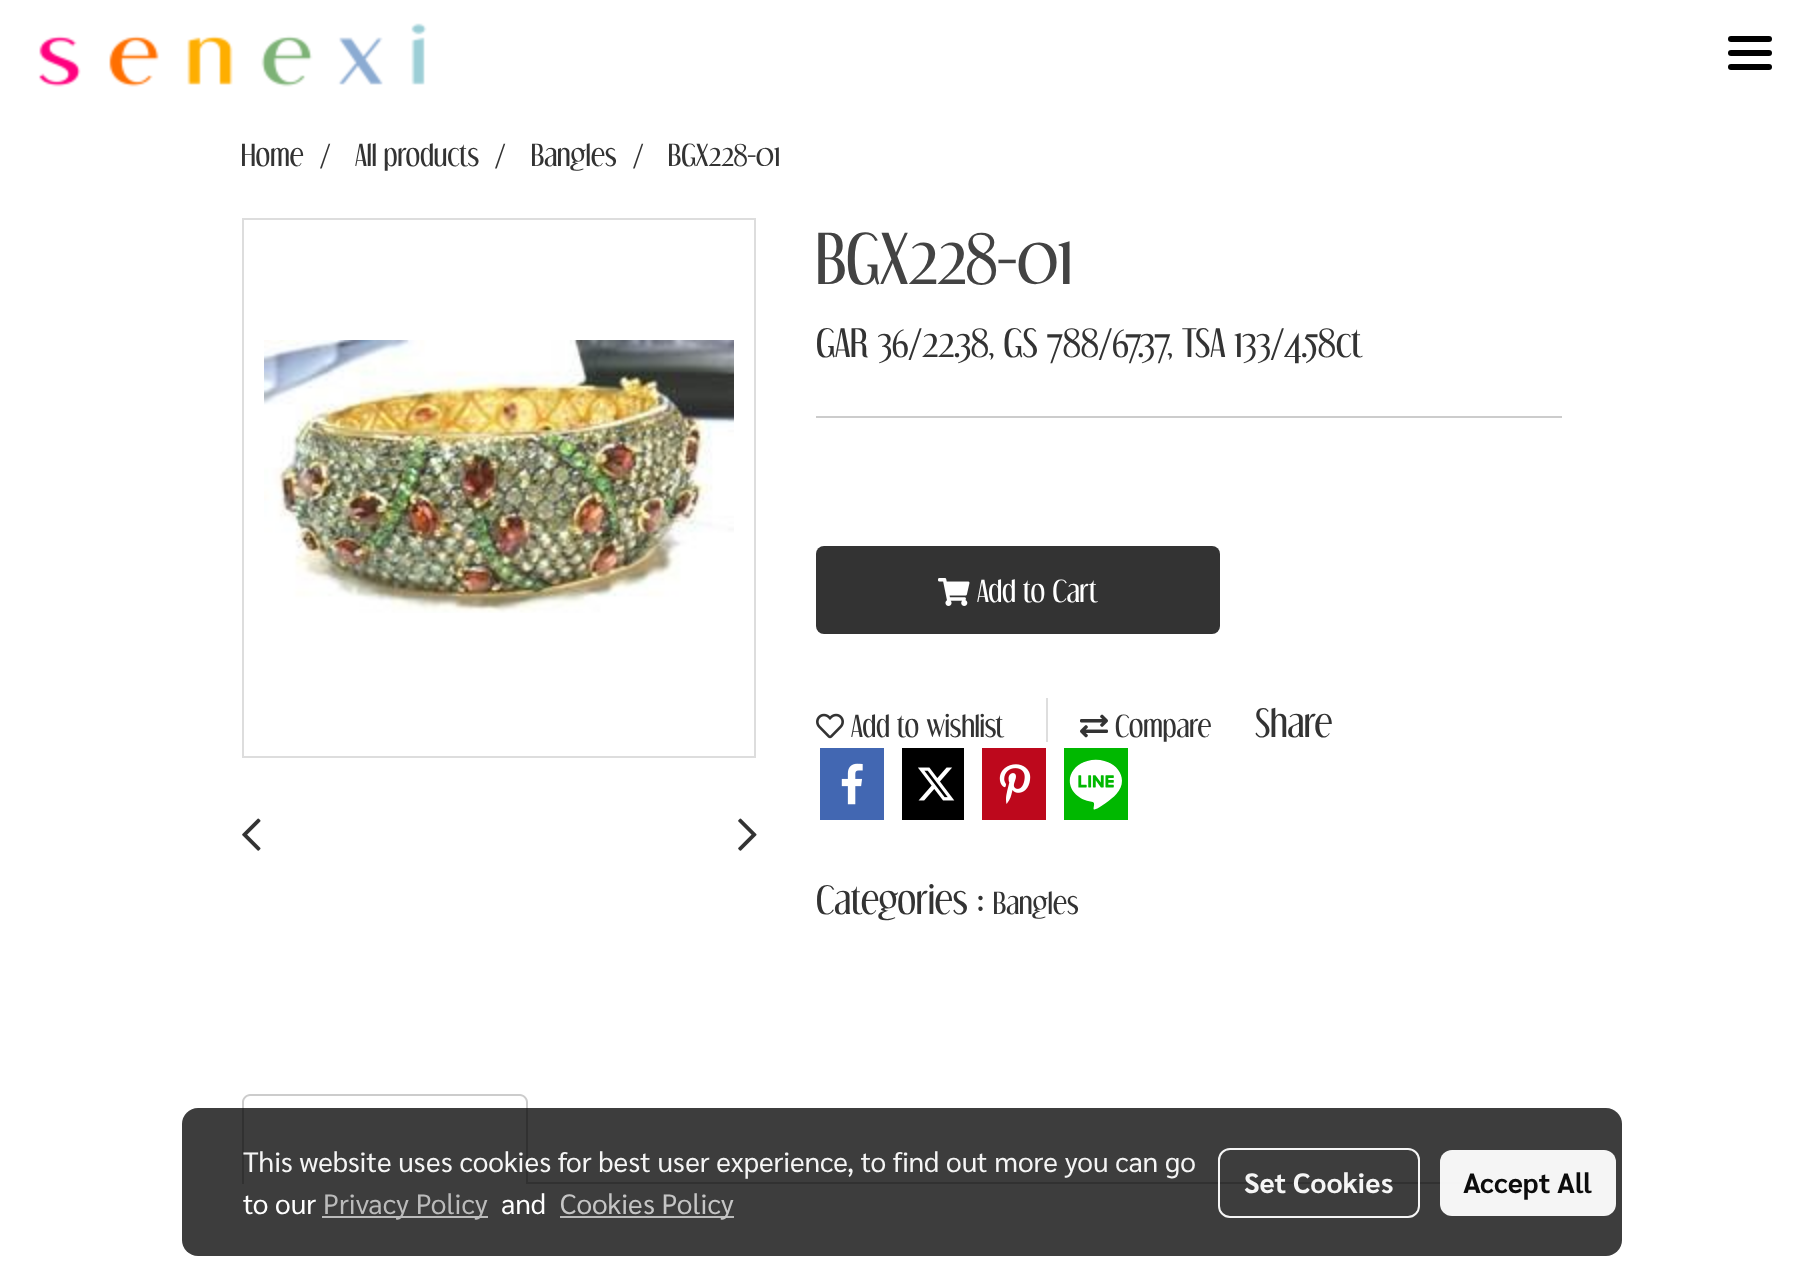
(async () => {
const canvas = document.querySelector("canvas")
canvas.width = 1801
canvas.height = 1271
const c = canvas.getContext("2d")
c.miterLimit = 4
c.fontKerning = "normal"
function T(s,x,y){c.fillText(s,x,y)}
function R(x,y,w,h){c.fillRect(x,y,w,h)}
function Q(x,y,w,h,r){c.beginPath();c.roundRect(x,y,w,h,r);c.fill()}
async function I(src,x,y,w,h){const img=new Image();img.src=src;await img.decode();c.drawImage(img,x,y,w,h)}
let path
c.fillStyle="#fff"
R(0,0,1801,1271)
await I("1.png",38,23,389,64)
c.fillStyle="#000"
Q(1728,50,44,6,3)
Q(1728,36,44,6,3)
Q(1728,64,44,6,3)
c.font="28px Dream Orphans"
c.fillStyle="#333"
T("Home",241,166)
T("/",320,166)
T("All products",355,166)
T("/",495,166)
T("Bangles",531,166)
T("/",633,166)
T("BGX228-01",668,166)
c.strokeStyle="#ddd"
c.lineWidth=2
c.strokeRect(243,219,512,538)
await I("2.png",264,340,470,273)
await I("3.png",242,818,19,33)
await I("4.png",738,818,19,33)
c.font="64px Dream Orphans"
c.fillStyle="#434343"
T("BGX228-01",816,284)
c.font="36px Dream Orphans"
c.fillStyle="#333"
T("GAR 36/22.38, GS 788/67.37, TSA 133/4.58ct",816,357)
c.fillStyle="#ccc"
R(816,416,746,2)
c.fillStyle="#333"
Q(816,546,404,88,8)
await I("5.png",938,578,32,28)
c.font="28px Dream Orphans"
c.fillStyle="#fff"
T("Add to Cart",977,602)
await I("6.png",816,713,28,26)
c.fillStyle="#333"
T("Add to wishlist",851,737)
c.fillStyle="#dedede"
R(1046,698,2,44)
await I("7.png",1080,714,28,24)
c.fillStyle="#333"
T("Compare",1115,737)
c.font="36px Dream Orphans"
T("Share",1255,737)
c.fillStyle="#4267b2"
R(820,748,64,72)
await I("8.png",841,763,22,42)
c.fillStyle="#000"
R(902,748,62,72)
await I("9.png",918,767,37,34)
c.fillStyle="#bd081c"
R(982,748,64,72)
await I("10.png",999,764,32,40)
c.fillStyle="#00b800"
R(1064,748,64,72)
await I("11.png",1069,759,53,51)
c.fillStyle="#333"
T("Categories :",816,914)
c.font="28px Dream Orphans"
T("Bangles",993,914)
c.fillStyle="#ccc"
path = new Path2D("M250 1094h270c4 0 8 4 8 8v82h-286v-82c0-4 4-8 8-8zm0 2h270c3 0 6 3 6 6v82h-282v-82c0-3 3-6 6-6z")
c.fill(path,"evenodd")
R(528,1182,1034,2)
c.fillStyle="#000000c2"
Q(182,1108,1440,148,16)
c.font="28px Sarabun"
c.fillStyle="#f5f5f5"
T("This website uses cookies for best user experience, to find out more you can go",243,1172)
c.fillStyle="#fff"
T("to our",243,1214)
c.fillStyle="#c2c2c2f2"
R(322,1216,166,2)
c.fillStyle="#bbb"
T("Privacy Policy",323,1214)
c.fillStyle="#fff"
T("and",501,1214)
c.fillStyle="#c2c2c2f2"
R(560,1216,174,2)
c.fillStyle="#c5c5c5"
T("Cookies Policy",560,1214)
c.beginPath()
c.roundRect(1219,1149,200,68,11)
c.strokeStyle="#fffffff2"
c.stroke()
c.font="bold 28px Sarabun"
c.fillStyle="#f5f5f5"
T("Set Cookies",1244,1193)
c.fillStyle="#fffffff2"
Q(1440,1150,176,66,12)
c.fillStyle="#0c0c0c"
T("Accept All",1463,1193)
})()
